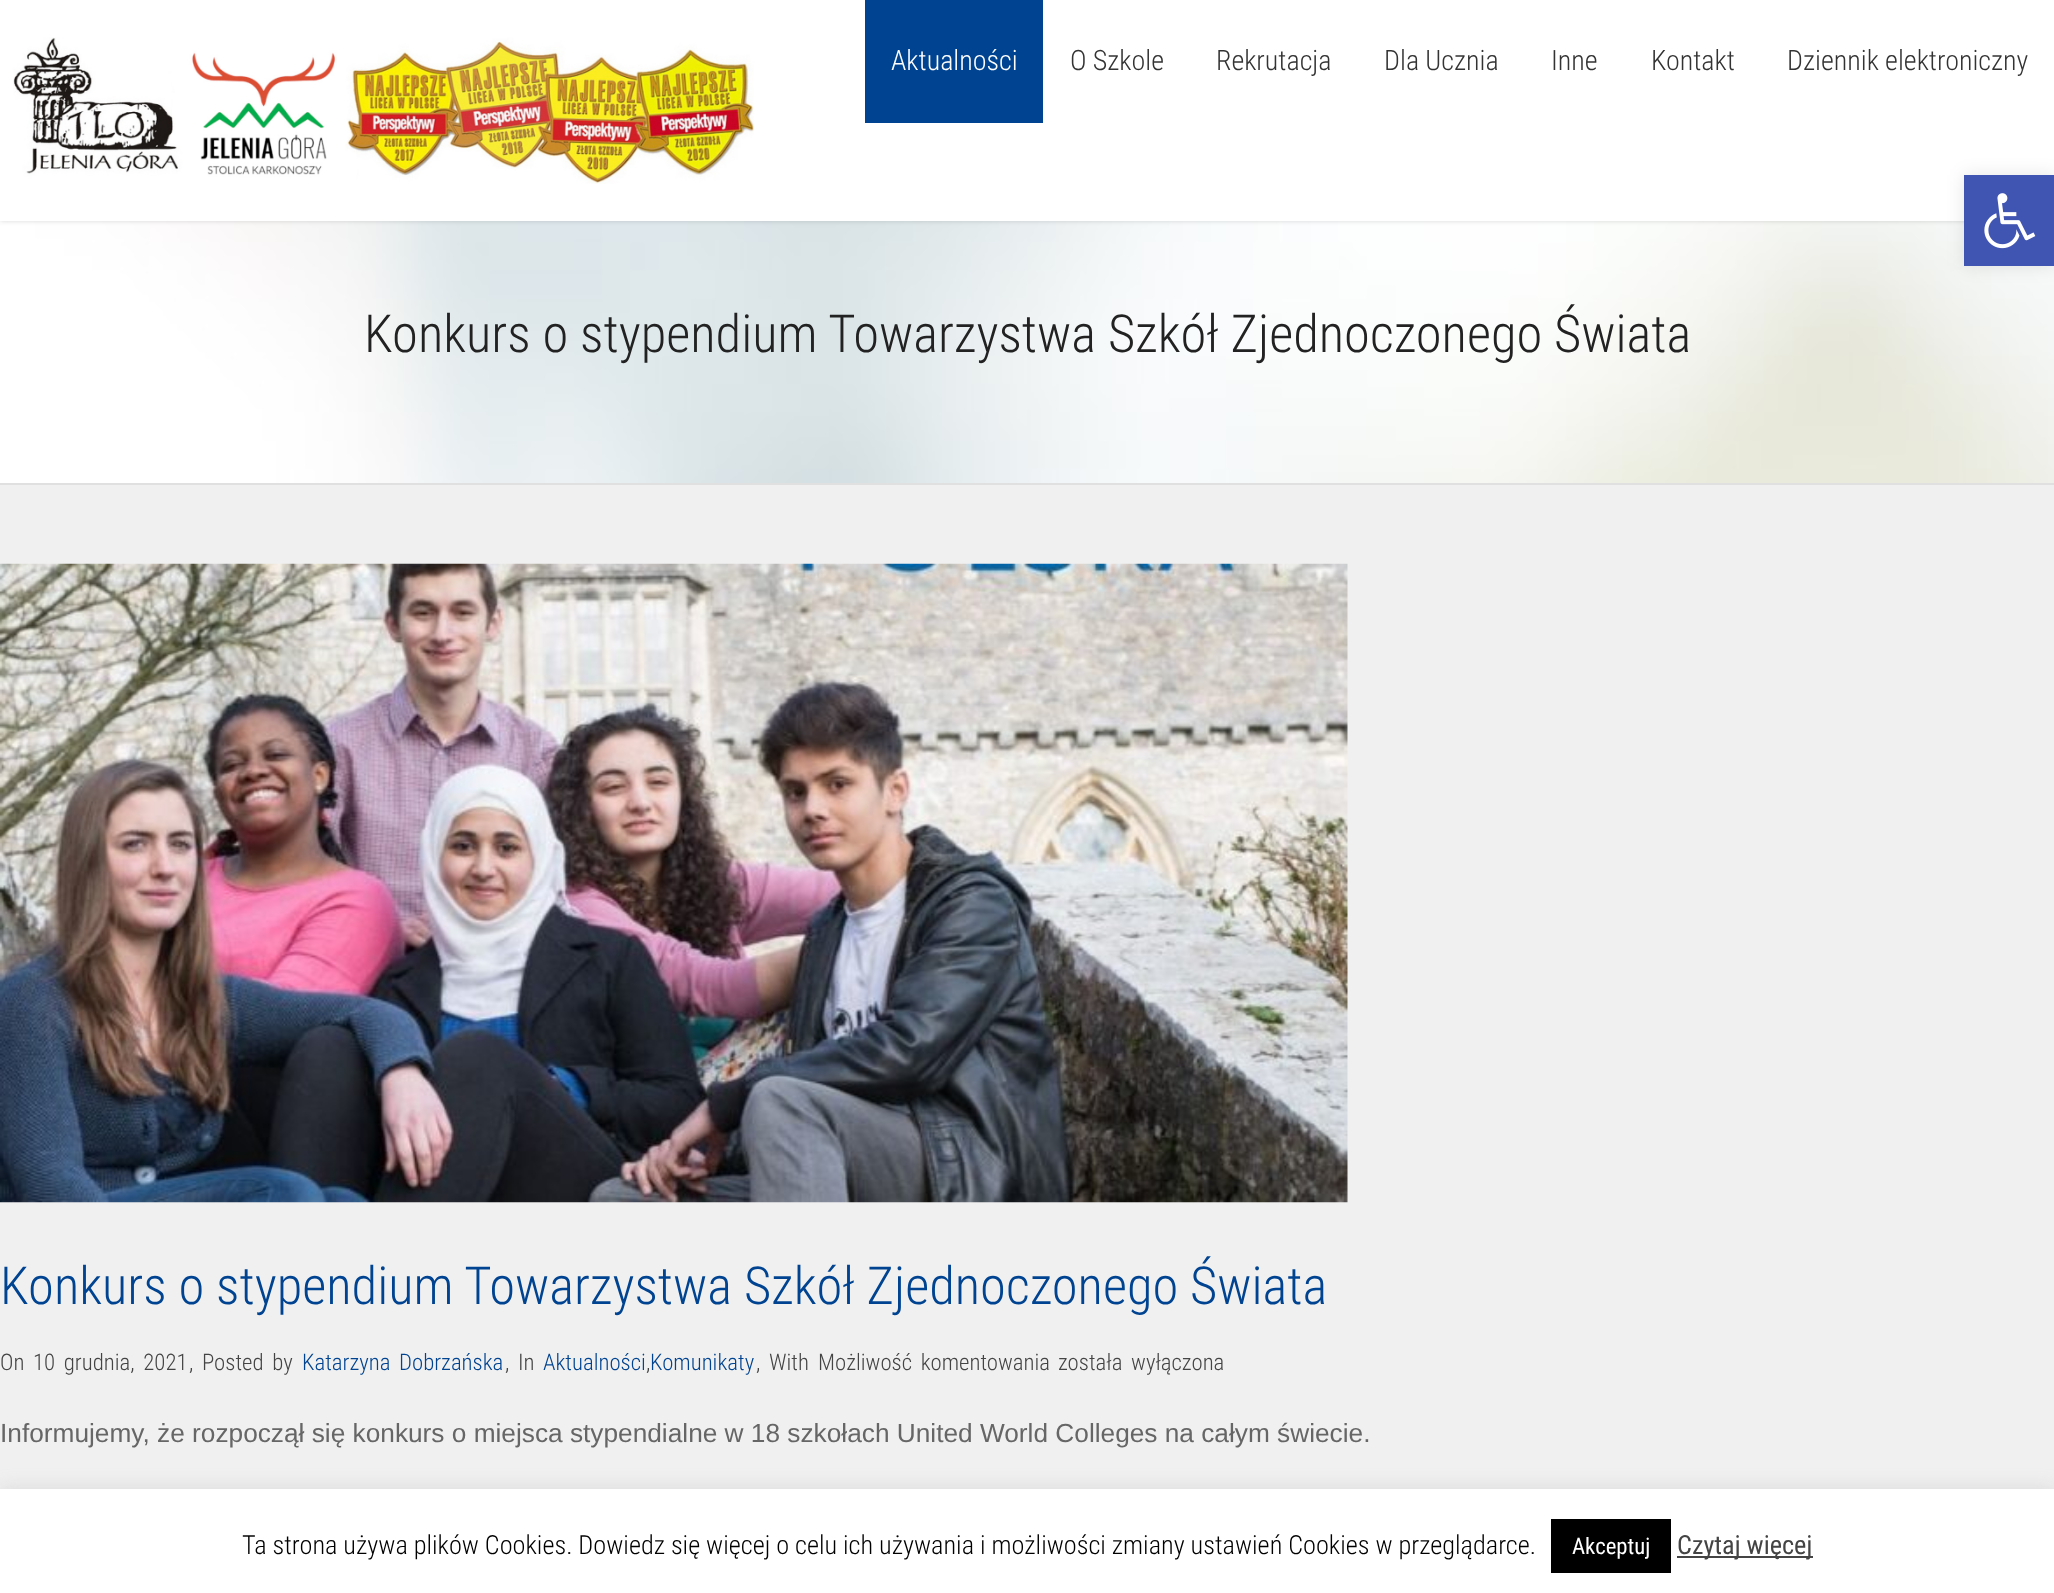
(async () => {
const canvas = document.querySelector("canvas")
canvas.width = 2054
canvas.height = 1593
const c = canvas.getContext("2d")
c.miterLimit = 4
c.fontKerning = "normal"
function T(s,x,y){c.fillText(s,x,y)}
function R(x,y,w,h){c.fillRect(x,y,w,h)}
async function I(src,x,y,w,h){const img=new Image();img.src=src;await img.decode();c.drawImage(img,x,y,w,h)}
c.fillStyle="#f0f0f0"
R(0,0,2054,1593)
await I("2.png",0,221,2054,262)
c.fillStyle="#00000026"
c.filter="blur(2.5px)"
c.beginPath()
c.rect(0,0,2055,221)
c.fill()
c.filter="none"
c.fillStyle="#fff"
R(0,0,2054,221)
await I("1.png",13,37,741,147)
c.fillStyle="#004390"
R(865,0,178,123)
c.font="300 28px Roboto Condensed"
c.fillStyle="#fff"
T("Aktualności",891,70)
c.fillStyle="#333"
T("O Szkole",1070,70)
T("Rekrutacja",1216,70)
T("Dla Ucznia",1384,70)
T("Inne",1551,70)
T("Kontakt",1651,70)
T("Dziennik elektroniczny",1787,70)
c.fillStyle="#e0e0e0"
R(0,483,2054,2)
c.font="300 52.5px Roboto Condensed"
c.fillStyle="#222"
T("Konkurs o stypendium Towarzystwa Szkół Zjednoczonego Świata",364,352)
await I("3.png",0,563,1348,640)
c.fillStyle="#004390"
T("Konkurs o stypendium Towarzystwa Szkół Zjednoczonego Świata",0,1304)
c.wordSpacing="3.5px"
c.font="300 22.75px Roboto Condensed"
c.fillStyle="#444"
T("On 10 grudnia, 2021",0,1370)
c.wordSpacing="0px"
T(",",189,1370)
c.wordSpacing="3.5px"
T("Posted by",202,1370)
c.fillStyle="#004390"
T("Katarzyna Dobrzańska",302,1370)
c.wordSpacing="0px"
c.fillStyle="#444"
T(",",505,1370)
T("In",518,1370)
c.fillStyle="#004390"
T("Aktualności",543,1370)
c.fillStyle="#444"
T(",",646,1370)
c.fillStyle="#004390"
T("Komunikaty",650,1370)
c.fillStyle="#444"
T(",",756,1370)
T("With",769,1370)
c.wordSpacing="3.5px"
T("Możliwość komentowania",818,1370)
T("została wyłączona",1058,1370)
c.wordSpacing="0px"
c.font="26.25px Liberation Sans"
c.fillStyle="#666"
T("Informujemy, że rozpoczął się konkurs o miejsca stypendialne w 18 szkołach United World Colleges na całym świecie.",0,1442)
c.fillStyle="#0000001a"
c.filter="blur(9px)"
c.beginPath()
c.rect(1964,175,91,91)
c.fill()
c.filter="none"
c.fillStyle="#4054b2"
R(1964,175,90,91)
await I("4.png",1984,193,52,56)
c.fillStyle="#acabab4d"
c.filter="blur(9px)"
c.beginPath()
c.rect(0,1488,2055,105)
c.fill()
c.filter="none"
c.fillStyle="#fff"
R(0,1489,2054,104)
c.font="300 26.25px Roboto Condensed"
c.fillStyle="#000"
T("Ta strona używa plików Cookies. Dowiedz się więcej o celu ich używania i możliwości zmiany ustawień Cookies w przeglądarce.",242,1554)
R(1551,1519,120,54)
c.font="22.75px Roboto Condensed"
c.fillStyle="#fff"
T("Akceptuj",1572,1554)
c.fillStyle="#444"
R(1677,1556,136,2)
c.font="26.25px Roboto Condensed"
T("Czytaj więcej",1677,1554)
})()
